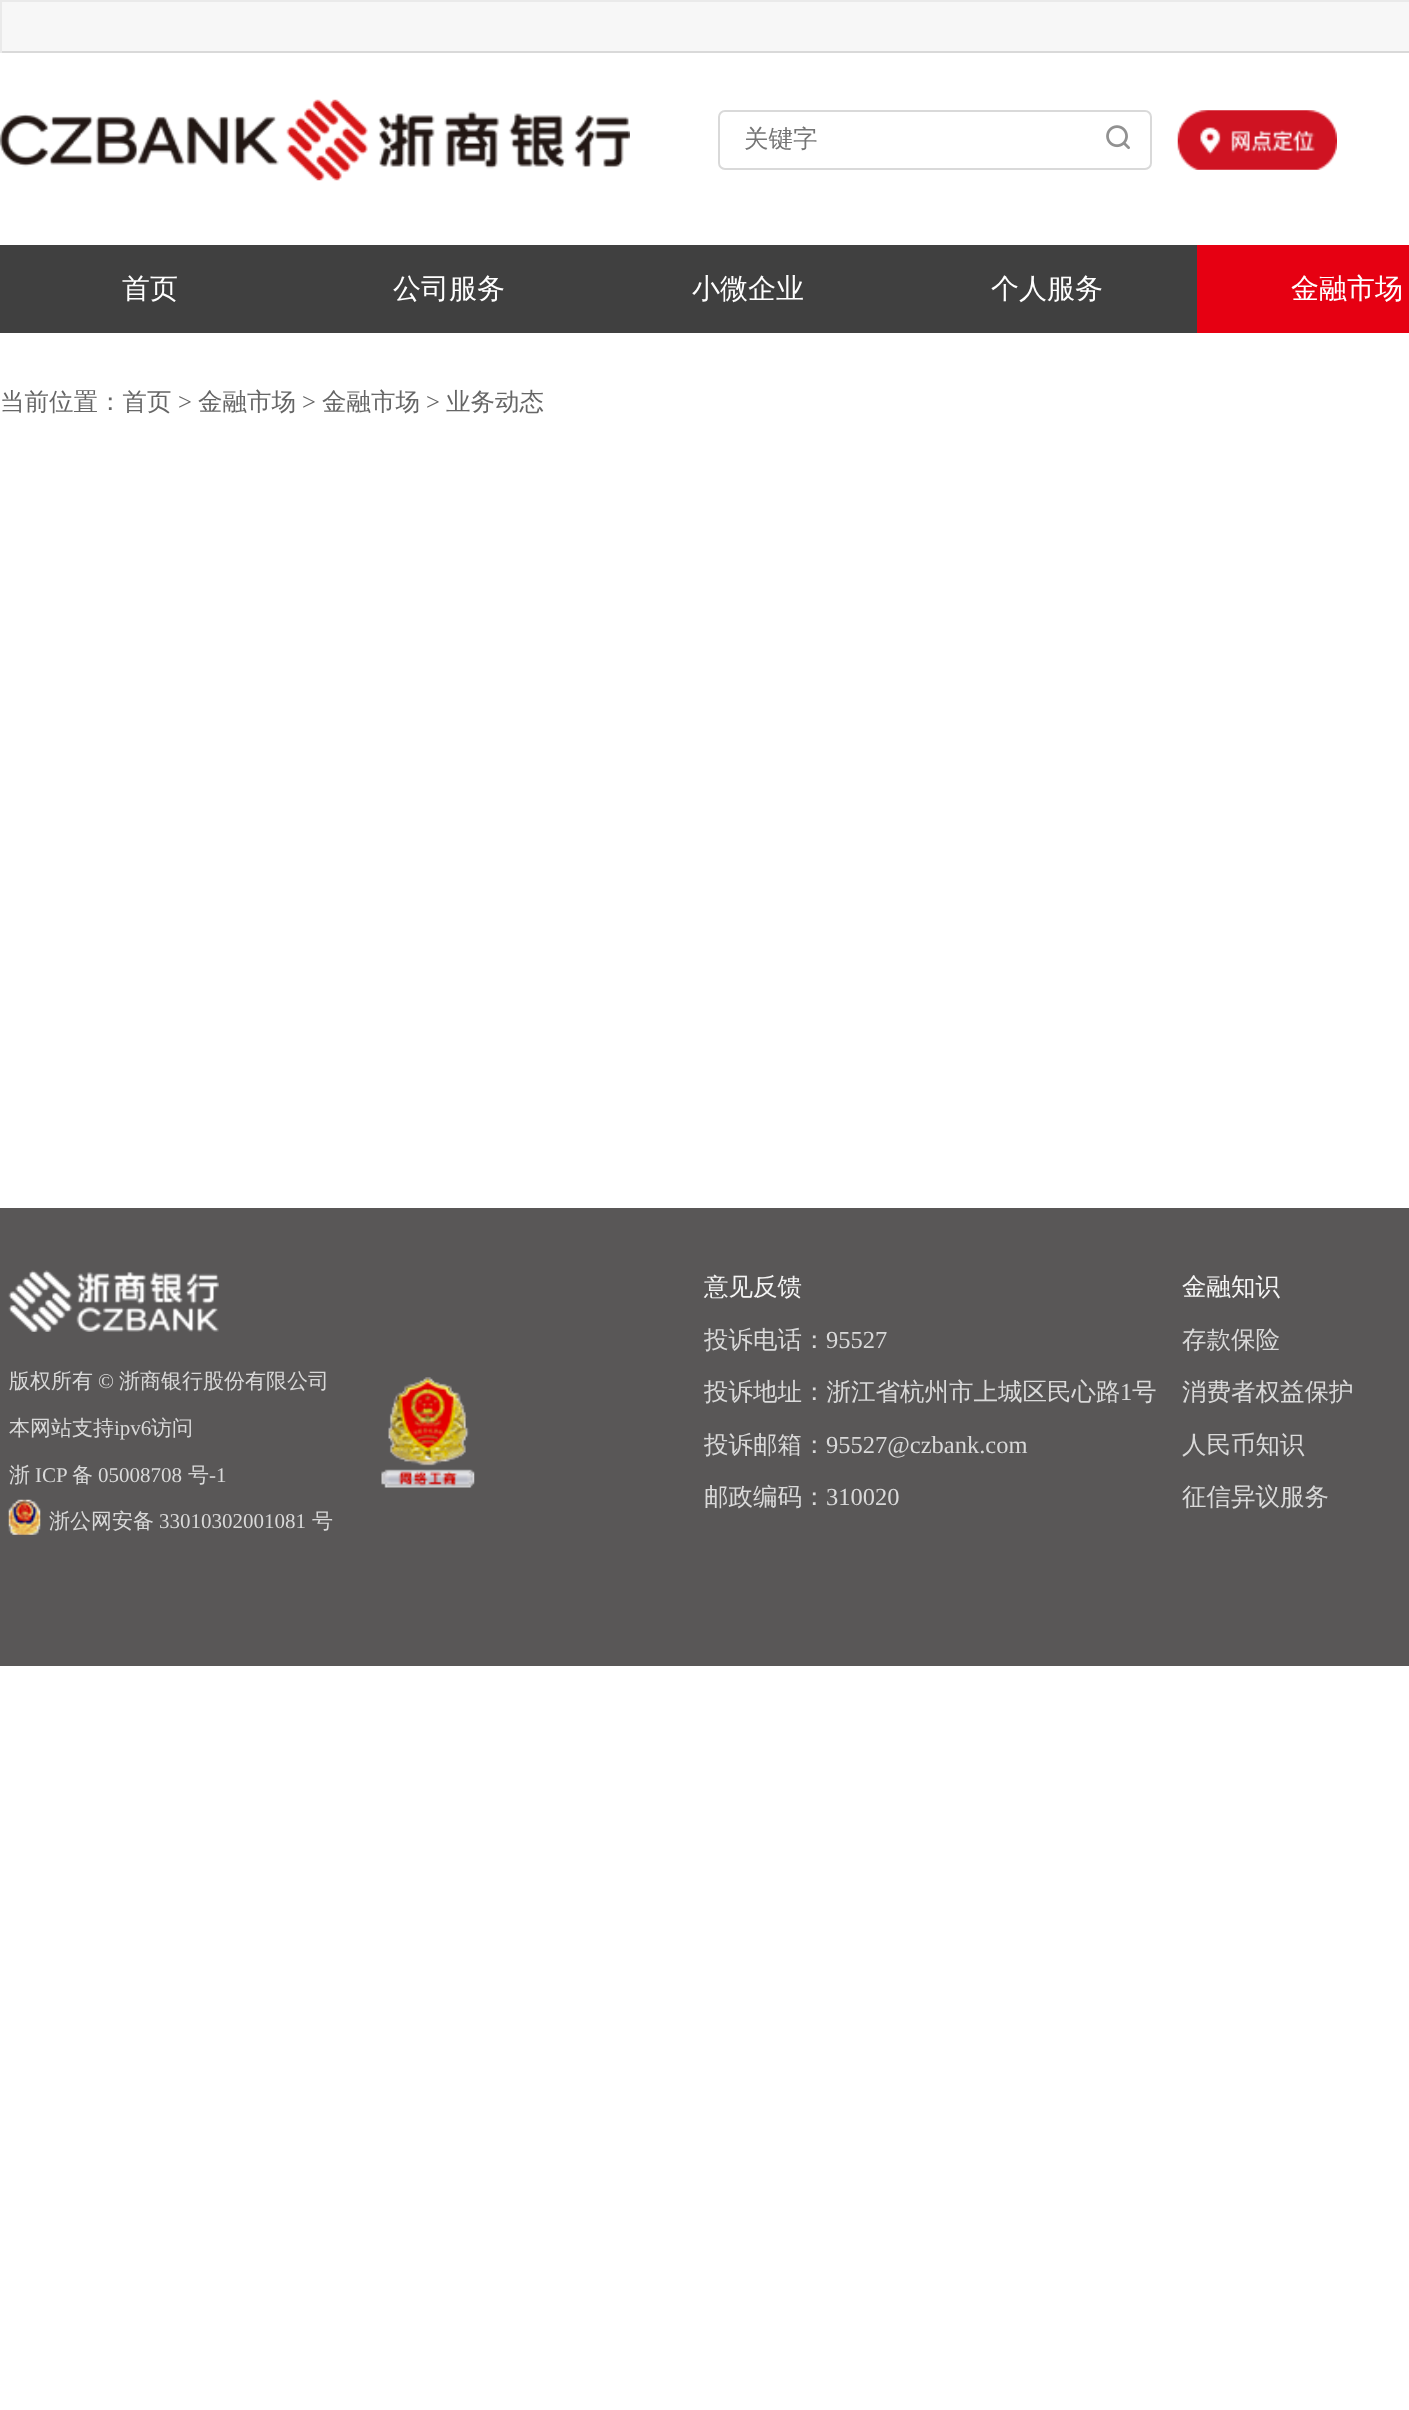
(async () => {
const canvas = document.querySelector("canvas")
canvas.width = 1409
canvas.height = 2410
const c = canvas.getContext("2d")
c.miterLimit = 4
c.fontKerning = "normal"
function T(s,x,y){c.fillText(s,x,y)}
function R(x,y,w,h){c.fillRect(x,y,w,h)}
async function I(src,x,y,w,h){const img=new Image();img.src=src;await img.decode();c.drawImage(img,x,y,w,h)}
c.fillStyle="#fff"
R(0,0,1409,2410)
c.fillStyle="#f7f7f7"
R(2,2,1407,49)
c.fillStyle="#eaeaea"
R(0,0,1409,2)
c.fillStyle="#d9d9d9"
R(0,51,1409,2)
c.fillStyle="#eaeaea"
R(0,0,2,53)
await I("1.png",0,99,630,82)
c.beginPath()
c.roundRect(719,111,432,58,6)
c.strokeStyle="#d9d9d9"
c.lineWidth=2
c.stroke()
c.font="500 24.5px WenQuanYi Zen Hei"
c.fillStyle="#757575"
T("关键字",744,147)
await I("2.png",1106,125,24,25)
await I("3.png",1177,110,160,60)
c.fillStyle="#404040"
R(0,245,1197,88)
c.font="500 28px WenQuanYi Zen Hei"
c.fillStyle="#fff"
T("首页",122,298)
T("公司服务",393,298)
T("小微企业",692,298)
T("个人服务",991,298)
c.fillStyle="#e60012"
R(1197,245,212,88)
c.fillStyle="#fff"
T("金融市场",1291,298)
c.font="500 24.5px WenQuanYi Zen Hei"
c.fillStyle="#666"
T("当前位置：首页",0,410)
c.font="24.5px Liberation Serif"
T(">",178,410)
c.font="500 24.5px WenQuanYi Zen Hei"
T("金融市场",198,410)
c.font="24.5px Liberation Serif"
T(">",302,410)
c.font="500 24.5px WenQuanYi Zen Hei"
T("金融市场",322,410)
c.font="24.5px Liberation Serif"
T(">",426,410)
c.font="500 24.5px WenQuanYi Zen Hei"
T("业务动态",446,410)
c.fillStyle="#595757"
R(0,1208,1409,458)
await I("4.png",8,1270,211,62)
c.font="500 21px WenQuanYi Zen Hei"
c.fillStyle="#d9d9d9"
T("版权所有",9,1388)
c.font="21px Liberation Serif"
T("©",98,1388)
c.font="500 21px WenQuanYi Zen Hei"
T("浙商银行股份有限公司",119,1388)
T("本网站支持",9,1435)
c.font="21px Liberation Serif"
T("ipv6",114,1435)
c.font="500 21px WenQuanYi Zen Hei"
T("访问",151,1435)
T("浙",9,1482)
c.font="21px Liberation Serif"
T("ICP",35,1482)
c.font="500 21px WenQuanYi Zen Hei"
T("备",72,1482)
c.font="21px Liberation Serif"
T("05008708",98,1482)
c.font="500 21px WenQuanYi Zen Hei"
T("号",188,1482)
c.font="21px Liberation Serif"
T("-1",209,1482)
await I("5.png",8,1499,33,36)
c.font="500 21px WenQuanYi Zen Hei"
T("浙公网安备",49,1528)
c.font="21px Liberation Serif"
T("33010302001081",159,1528)
c.font="500 21px WenQuanYi Zen Hei"
T("号",312,1528)
await I("6.png",381,1377,94,111)
c.font="500 24.5px WenQuanYi Zen Hei"
c.fillStyle="#f5f5f5"
T("意见反馈",704,1295)
c.fillStyle="#d9d9d9"
T("投诉电话：",704,1348)
c.font="24.5px Liberation Serif"
T("95527",826,1348)
c.font="500 24.5px WenQuanYi Zen Hei"
T("投诉地址：浙江省杭州市上城区民心路",704,1400)
c.font="24.5px Liberation Serif"
T("1",1120,1400)
c.font="500 24.5px WenQuanYi Zen Hei"
T("号",1132,1400)
T("投诉邮箱：",704,1453)
c.font="24.5px Liberation Serif"
T("95527@czbank.com",826,1453)
c.font="500 24.5px WenQuanYi Zen Hei"
T("邮政编码：",704,1505)
c.font="24.5px Liberation Serif"
T("310020",826,1505)
c.font="500 24.5px WenQuanYi Zen Hei"
c.fillStyle="#f5f5f5"
T("金融知识",1182,1295)
c.fillStyle="#d9d9d9"
T("存款保险",1182,1348)
T("消费者权益保护",1182,1400)
T("人民币知识",1182,1453)
T("征信异议服务",1182,1505)
})()
